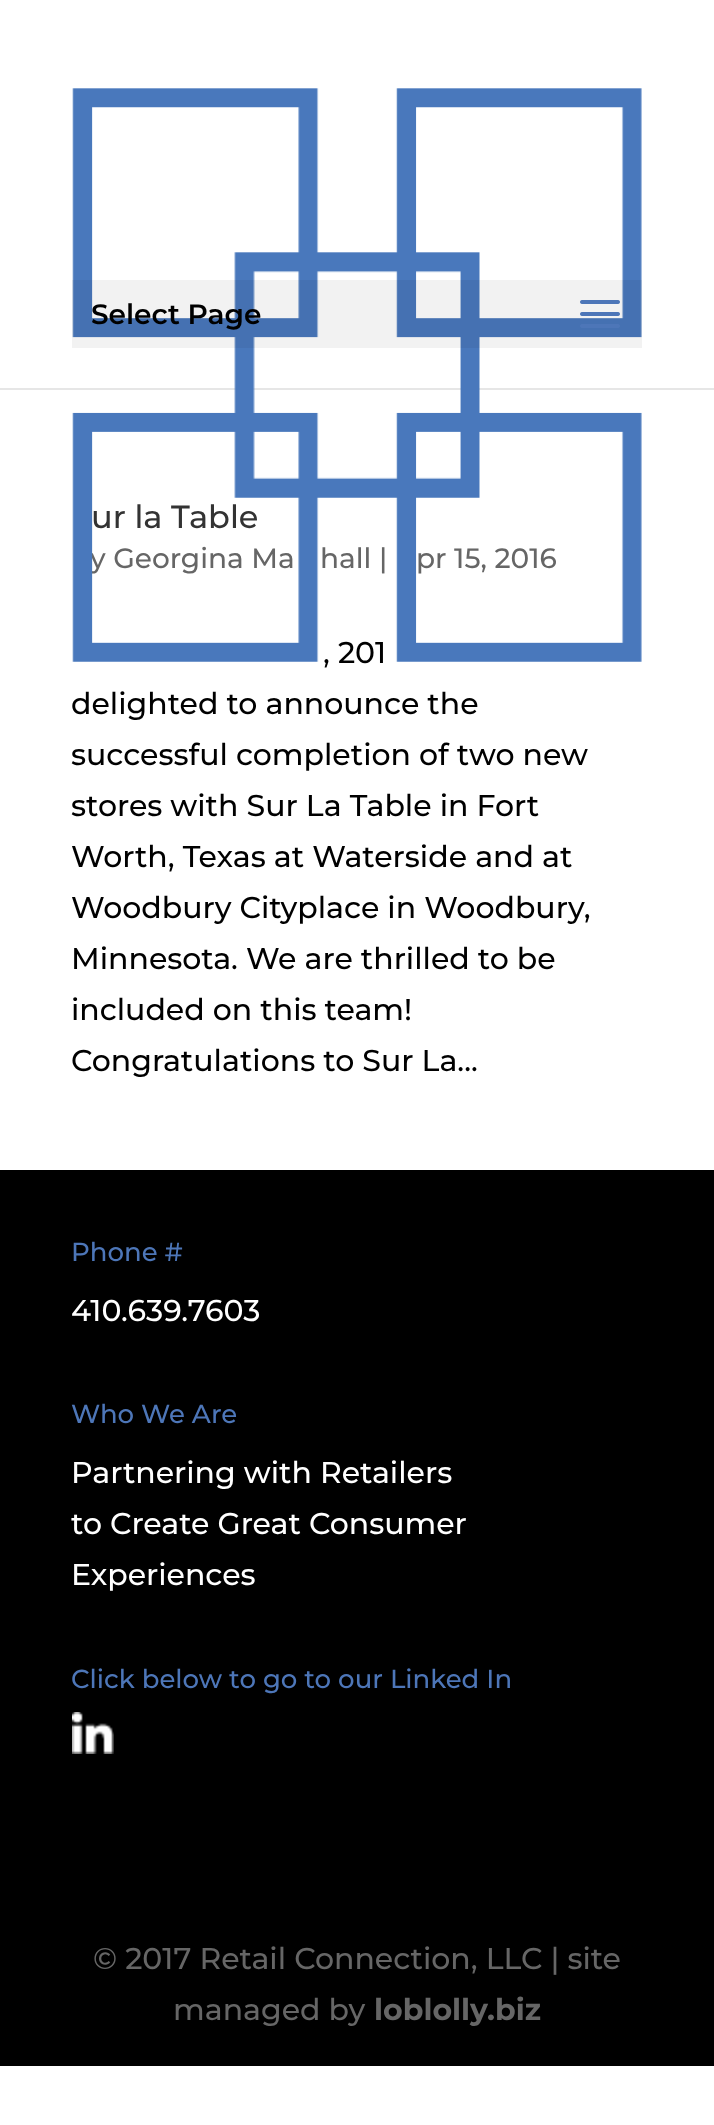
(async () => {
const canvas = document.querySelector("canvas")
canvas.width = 714
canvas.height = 2125
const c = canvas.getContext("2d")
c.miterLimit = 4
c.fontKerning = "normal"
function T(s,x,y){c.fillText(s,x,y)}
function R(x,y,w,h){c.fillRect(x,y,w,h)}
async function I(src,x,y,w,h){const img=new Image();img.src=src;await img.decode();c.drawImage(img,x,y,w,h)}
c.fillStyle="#fff"
R(0,0,714,2125)
c.fillStyle="#e6e6e6"
R(0,388,714,2)
c.font="500 32px Montserrat"
c.fillStyle="#333"
T("ur la Table",91,528)
c.font="500 28px Montserrat"
c.fillStyle="#666"
T("y Georgina Ma",90,568)
T("hall |",320,568)
T("pr 15, 2016",416,568)
c.font="500 30px Montserrat"
c.fillStyle="#000"
T(", 201",323,663)
await I("1.png",72,88,570,574)
c.fillStyle="#0000000d"
R(72,280,570,68)
c.font="600 28px Montserrat"
c.fillStyle="#000"
T("Select Page",91,324)
await I("2.png",580,300,40,28)
c.font="500 30px Montserrat"
T("delighted to announce the",71,714)
T("successful completion of two new",71,765)
T("stores with Sur La Table in Fort",71,816)
T("Worth, Texas at Waterside and at",71,867)
T("Woodbury Cityplace in Woodbury,",71,918)
T("Minnesota. We are thrilled to be",71,969)
T("included on this team!",71,1020)
T("Congratulations to Sur La...",71,1071)
R(0,1170,714,896)
c.font="500 26px Montserrat"
c.fillStyle="#4d76b8"
T("Phone #",71,1261)
c.font="500 30px Montserrat"
c.fillStyle="#fff"
T("410.639.7603",71,1321)
c.font="500 26px Montserrat"
c.fillStyle="#4d76b8"
T("Who We Are",71,1423)
c.font="500 30px Montserrat"
c.fillStyle="#fff"
T("Partnering with Retailers",71,1483)
T("to Create Great Consumer",71,1534)
T("Experiences",71,1585)
c.font="500 26px Montserrat"
c.fillStyle="#4d76b8"
T("Click below to go to our Linked In",71,1688)
await I("3.png",72,1712,42,42)
c.font="500 30px Montserrat"
c.fillStyle="#666"
T("© 2017 Retail Connection, LLC | site",93,1969)
T("managed by",173,2020)
c.font="bold 30px Montserrat"
T("loblolly.biz",374,2020)
})()
